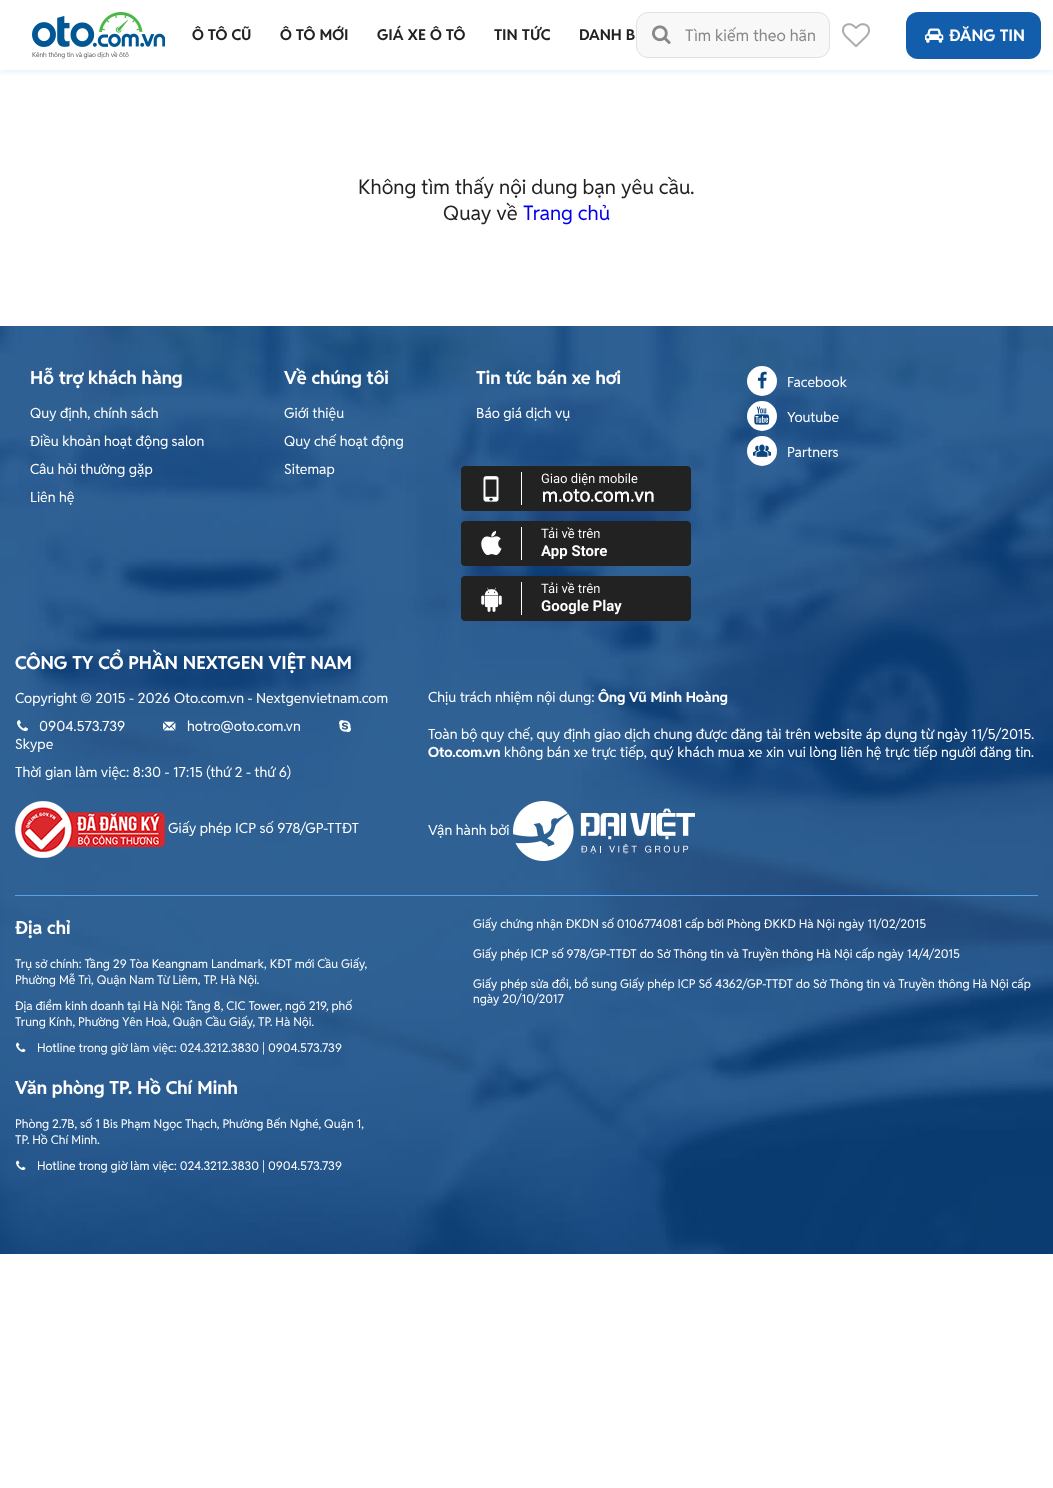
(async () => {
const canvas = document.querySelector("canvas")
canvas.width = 1053
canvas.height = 1488
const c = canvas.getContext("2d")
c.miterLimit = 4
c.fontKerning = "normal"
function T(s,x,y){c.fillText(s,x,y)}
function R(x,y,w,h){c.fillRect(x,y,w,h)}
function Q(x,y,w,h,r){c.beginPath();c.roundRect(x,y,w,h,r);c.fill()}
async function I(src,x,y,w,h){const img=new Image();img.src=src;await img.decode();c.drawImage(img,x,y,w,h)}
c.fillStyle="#fff"
R(0,0,1053,1488)
c.save()
c.beginPath()
c.rect(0,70,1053,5)
c.clip()
c.fillStyle="#135eac1a"
c.filter="blur(3px)"
c.beginPath()
c.rect(0,2,1053,70)
c.fill()
c.filter="none"
c.restore()
c.font="bold 15px Reddit Sans"
c.fillStyle="#222"
T("Ô TÔ CŨ",192,40)
T("Ô TÔ MỚI",280,40)
T("GIÁ XE Ô TÔ",377,40)
T("TIN TỨC",494,40)
T("DANH B",579,40)
c.fillStyle="#f8f8f8"
c.beginPath()
c.roundRect(636.5,12.5,193,45,11.5)
c.fill()
c.strokeStyle="#e1e1e1"
c.stroke()
await I("1.png",652,25,19,19)
c.font="16px Reddit Sans"
c.fillStyle="#888"
T("Tìm kiếm theo hãn",685,41)
await I("2.png",842,23,28,25)
c.fillStyle="#135eac"
Q(906,12,135,47,12)
await I("3.png",925,28,19,15)
c.font="bold 16px Reddit Sans"
c.fillStyle="#fff"
T("ĐĂNG TIN",949,41)
await I("4.png",32,12,133,35)
c.letterSpacing="-0.1px"
c.font="6.6px Reddit Sans"
c.fillStyle="#646464"
T("Kênh thông tin và giao dịch về ôtô",32,57)
c.letterSpacing="0px"
c.font="20px Reddit Sans"
c.fillStyle="#222"
T("Không tìm thấy nội dung bạn yêu cầu.",358,194)
T("Quay về",443,220)
c.fillStyle="#00e"
T("Trang chủ",523,220)
await I("5.png",0,326,1053,928)
c.font="bold 18px Reddit Sans"
c.fillStyle="#fff"
T("Hỗ trợ khách hàng",30,384)
c.font="14px Reddit Sans"
T("Quy định, chính sách",30,418)
T("Điều khoản hoạt động salon",30,446)
T("Câu hỏi thường gặp",30,474)
T("Liên hệ",30,502)
c.font="bold 18px Reddit Sans"
T("Về chúng tôi",284,384)
c.font="14px Reddit Sans"
T("Giới thiệu",284,418)
T("Quy chế hoạt động",284,446)
T("Sitemap",284,474)
c.font="bold 18px Reddit Sans"
T("Tin tức bán xe hơi",476,384)
c.font="14px Reddit Sans"
T("Báo giá dịch vụ",476,418)
c.beginPath()
c.arc(762,381,15,0,7)
c.fill()
await I("6.png",757,371,10,18)
T("Facebook",787,387)
c.beginPath()
c.arc(762,416,15,0,7)
c.fill()
await I("7.png",754,406,16,19)
T("Youtube",787,422)
c.beginPath()
c.arc(762,451,15,0,7)
c.fill()
await I("8.png",753,444,18,13)
T("Partners",787,457)
await I("9.png",461,466,230,45)
await I("10.png",461,521,230,45)
await I("11.png",461,576,230,45)
c.fillStyle="#56a1ee"
R(15,895,1023,1)
c.font="bold 18px Reddit Sans"
c.fillStyle="#fff"
T("CÔNG TY CỔ PHẦN NEXTGEN VIỆT NAM",15,669)
c.font="14px Reddit Sans"
T("Copyright © 2015 - 2026 Oto.com.vn - Nextgenvietnam.com",15,703)
await I("12.png",17,720,11,12)
T("0904.573.739",39,731)
await I("13.png",163,721,13,10)
T("hotro@oto.com.vn",187,731)
await I("14.png",339,720,12,13)
T("Skype",15,749)
T("Thời gian làm việc: 8:30 - 17:15 (thứ 2 - thứ 6)",15,777)
T("Chịu trách nhiệm nội dung:",428,702)
c.font="bold 14px Reddit Sans"
T("Ông Vũ Minh Hoàng",598,702)
c.font="14px Reddit Sans"
T("Toàn bộ quy chế, quy định giao dịch chung được đăng tải trên website áp dụng từ ngày 11/5/2015.",428,739)
c.font="bold 14px Reddit Sans"
T("Oto.com.vn",428,757)
c.font="14px Reddit Sans"
T("không bán xe trực tiếp, quý khách mua xe xin vui lòng liên hệ trực tiếp người đăng tin.",504,757)
await I("15.png",15,801,150,57)
T("Giấy phép ICP số 978/GP-TTĐT",168,833)
T("Vận hành bởi",428,835)
await I("16.png",513,801,182,60)
c.font="bold 18px Reddit Sans"
T("Địa chỉ",15,934)
c.font="12px Reddit Sans"
T("Trụ sở chính: Tầng 29 Tòa Keangnam Landmark, KĐT mới Cầu Giấy,",15,968)
T("Phường Mễ Trì, Quận Nam Từ Liêm, TP. Hà Nội.",15,984)
T("Địa điểm kinh doanh tại Hà Nội: Tầng 8, CIC Tower, ngõ 219, phố",15,1010)
T("Trung Kính, Phường Yên Hoà, Quận Cầu Giấy, TP. Hà Nội.",15,1026)
await I("17.png",16,1042,10,11)
T("Hotline trong giờ làm việc: 024.3212.3830 | 0904.573.739",37,1052)
T("Giấy chứng nhận ĐKDN số 0106774081 cấp bởi Phòng ĐKKD Hà Nội ngày 11/02/2015",473,928)
T("Giấy phép ICP số 978/GP-TTĐT do Sở Thông tin và Truyền thông Hà Nội cấp ngày 14/4/2015",473,958)
T("Giấy phép sửa đổi, bổ sung Giấy phép ICP Số 4362/GP-TTĐT do Sở Thông tin và Truyền thông Hà Nội cấp",473,988)
T("ngày 20/10/2017",473,1003)
c.font="bold 18px Reddit Sans"
T("Văn phòng TP. Hồ Chí Minh",15,1094)
c.font="12px Reddit Sans"
T("Phòng 2.7B, số 1 Bis Phạm Ngọc Thạch, Phường Bến Nghé, Quận 1,",15,1128)
T("TP. Hồ Chí Minh.",15,1144)
await I("18.png",16,1160,10,11)
T("Hotline trong giờ làm việc: 024.3212.3830 | 0904.573.739",37,1170)
})()
